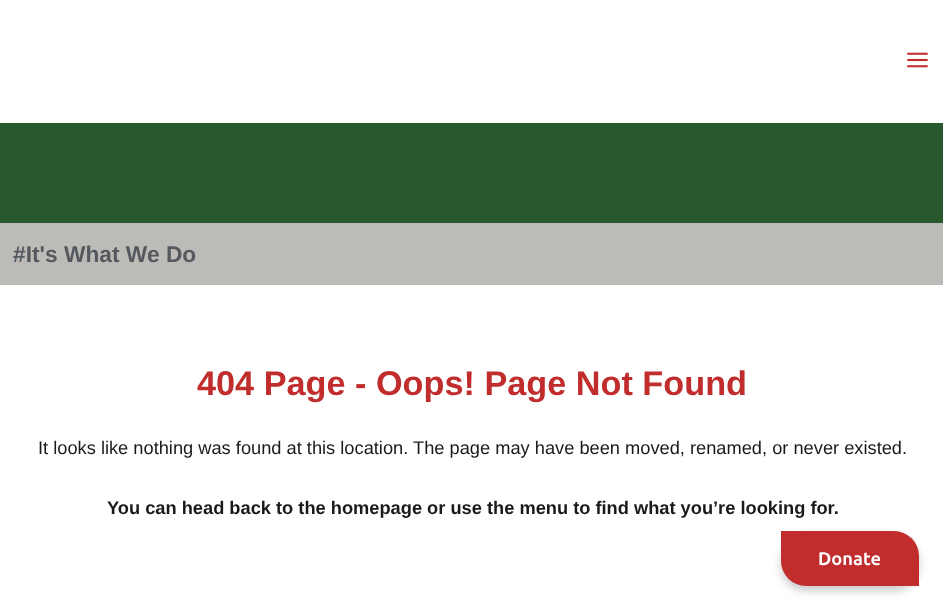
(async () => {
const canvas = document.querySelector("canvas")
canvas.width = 943
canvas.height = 611
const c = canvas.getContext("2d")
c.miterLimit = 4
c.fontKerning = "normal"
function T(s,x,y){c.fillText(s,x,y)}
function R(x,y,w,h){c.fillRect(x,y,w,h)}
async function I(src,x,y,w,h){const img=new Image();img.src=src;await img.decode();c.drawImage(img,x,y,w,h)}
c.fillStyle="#fff"
R(0,0,943,611)
await I("1.png",907,52,21,16)
c.fillStyle="#2a582e"
R(0,123,943,100)
c.fillStyle="#bdbbb7"
R(0,223,943,62)
c.font="bold 22.75px Liberation Sans"
c.fillStyle="#54595f"
T("#It's What We Do",13,262)
c.font="bold 34.25px Liberation Sans"
c.fillStyle="#c12d2d"
T("404 Page - Oops! Page Not Found",197,395)
c.font="18.25px Liberation Sans"
c.fillStyle="#1a1a1a"
T("It looks like nothing was found at this location. The page may have been moved, renamed, or never existed.",38,454)
c.font="bold 18.25px Liberation Sans"
T("You can head back to the homepage or use the menu to find what you’re looking for.",107,514)
c.fillStyle="#00000033"
c.filter="blur(4px)"
c.beginPath()
c.roundRect(781,536,138,55,25)
c.fill()
c.filter="none"
c.fillStyle="#c12d2d"
c.beginPath()
c.roundRect(781,531,138,55,[0,25,0,25])
c.fill()
c.font="bold 18.25px Ubuntu"
c.fillStyle="#fff"
T("Donate",818,565)
})()
